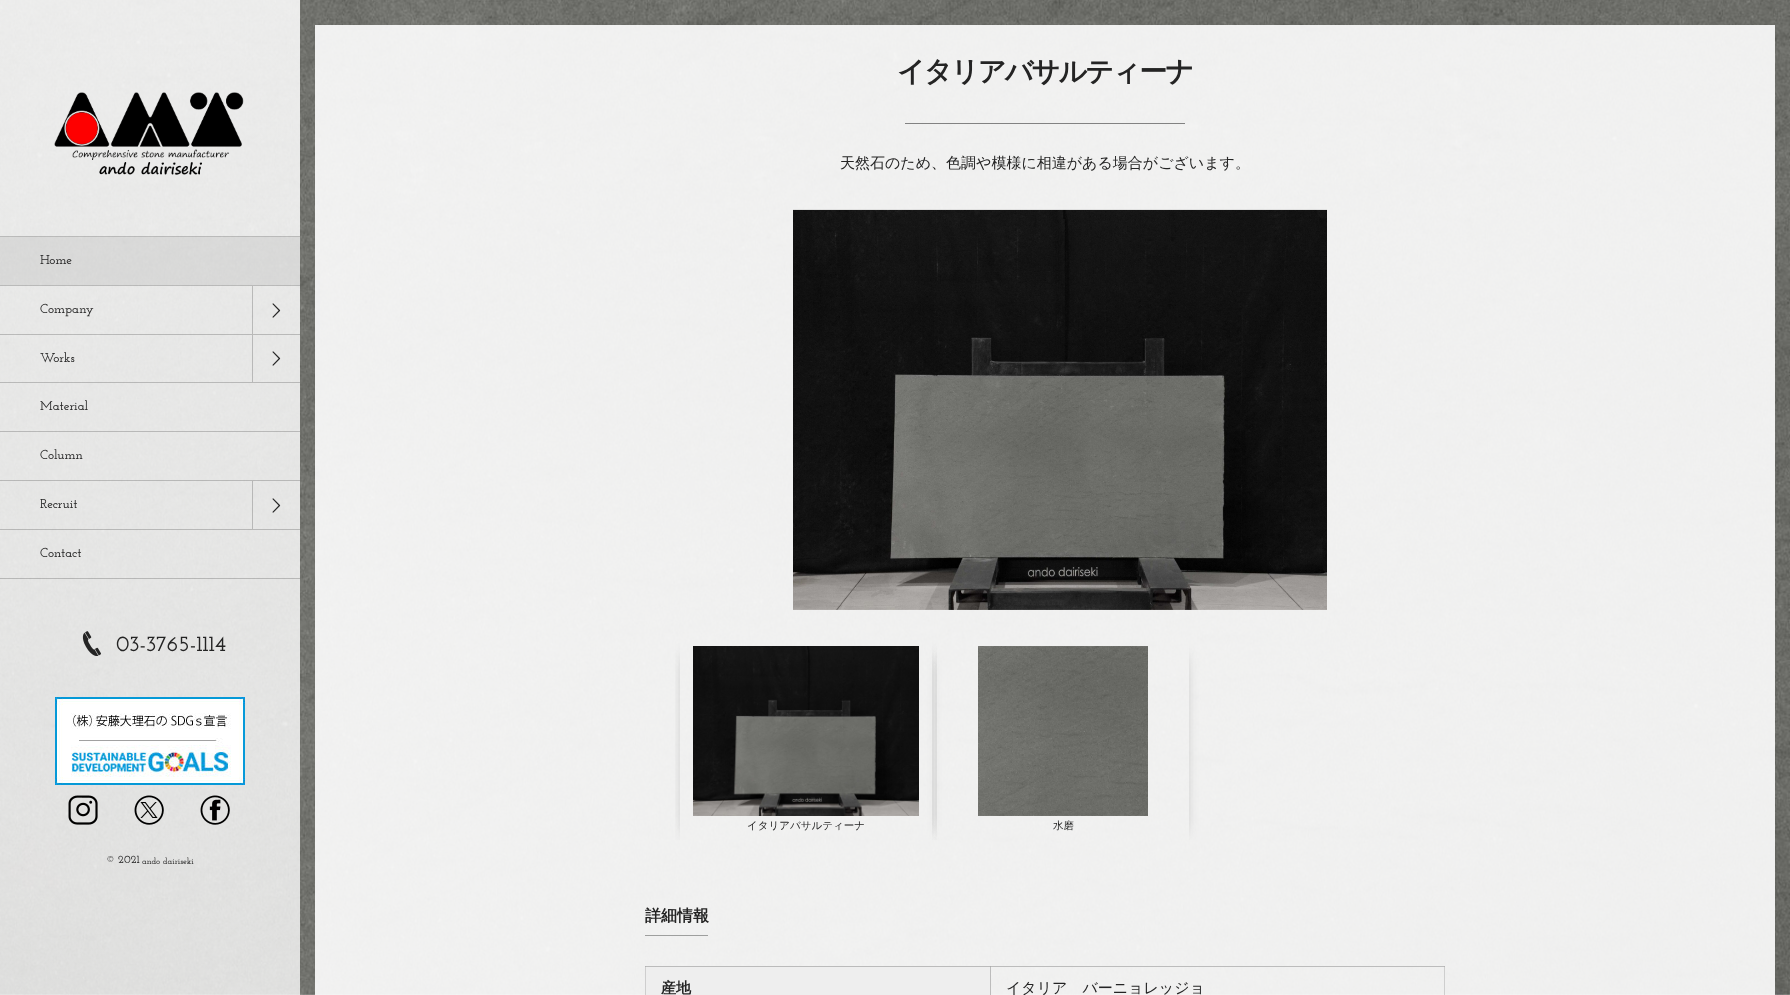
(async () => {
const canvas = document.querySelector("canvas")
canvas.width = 1790
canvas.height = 995
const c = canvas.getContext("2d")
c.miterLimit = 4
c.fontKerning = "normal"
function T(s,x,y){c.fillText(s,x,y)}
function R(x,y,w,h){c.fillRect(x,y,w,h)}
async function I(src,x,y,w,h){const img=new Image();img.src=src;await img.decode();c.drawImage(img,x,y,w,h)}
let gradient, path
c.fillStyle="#fff"
R(0,0,1790,995)
await I("1.png",0,0,1790,995)
c.fillStyle="#ffffffb8"
R(0,0,300,995)
gradient = c.createLinearGradient(150,0,150,995)
gradient.addColorStop(0,"#ffffff85")
gradient.addColorStop(1,"#ffffff33")
c.fillStyle = gradient
R(0,0,300,995)
await I("2.png",54,92,190,83)
c.fillStyle="#2424243d"
R(0,236,300,1)
R(0,285,300,1)
c.fillStyle="#24242414"
R(0,237,300,48)
c.font="600 13px Josefin Slab"
c.fillStyle="#242424"
T("Home",40,264)
c.fillStyle="#2424243d"
R(0,334,300,1)
c.fillStyle="#242424"
T("Company",40,313)
c.fillStyle="#2424243d"
R(252,286,1,48)
await I("3.png",272,303,9,15)
R(0,382,300,1)
c.fillStyle="#242424"
T("Works",40,362)
c.fillStyle="#2424243d"
R(252,335,1,47)
await I("4.png",272,351,9,15)
R(0,431,300,1)
c.fillStyle="#242424"
T("Material",40,410)
c.fillStyle="#2424243d"
R(0,480,300,1)
c.fillStyle="#242424"
T("Column",40,459)
c.fillStyle="#2424243d"
R(0,529,300,1)
c.fillStyle="#242424"
T("Recruit",40,508)
c.fillStyle="#2424243d"
R(252,481,1,48)
await I("5.png",272,498,9,15)
R(0,578,300,1)
c.fillStyle="#242424"
T("Contact",40,557)
await I("6.png",82,631,19,25)
c.font="600 22px Josefin Slab"
T("03-3765-1114",116,651)
await I("7.png",55,697,190,88)
await I("8.png",68,795,30,30)
await I("9.png",134,795,30,30)
await I("10.png",200,795,30,30)
c.font="600 11px Josefin Slab"
T("© 2021",106,863)
c.font="600 8.75px Josefin Slab"
T("ando dairiseki",142,864)
c.fillStyle="#ffffffe6"
R(315,25,1460,970)
c.letterSpacing="-1.75px"
c.font="bold 28px WenQuanYi Zen Hei"
c.fillStyle="#242424"
T("イタリアバサルティーナ",897,81)
c.fillStyle="#828282"
R(905,123,280,1)
c.letterSpacing="0px"
c.font="500 15px WenQuanYi Zen Hei"
c.fillStyle="#242424"
T("天然石のため、色調や模様に相違がある場合がございます。",840,168)
await I("11.png",793,209,534,401)
c.save()
c.beginPath()
c.rect(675,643,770,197)
c.clip()
path = new Path2D("M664 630h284v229h-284zm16 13h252v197h-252z")
c.clip(path,"evenodd")
c.filter="blur(9px)"
c.beginPath()
c.rect(692,658,228,173)
c.fill()
c.filter="none"
c.restore()
await I("12.png",693,646,226,170)
c.font="500 10.5px WenQuanYi Zen Hei"
T("イタリアバサルティーナ",747,829)
c.save()
c.beginPath()
c.rect(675,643,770,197)
c.clip()
path = new Path2D("M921 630h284v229h-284zm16 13h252v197h-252z")
c.clip(path,"evenodd")
c.filter="blur(9px)"
c.beginPath()
c.rect(949,658,228,173)
c.fill()
c.filter="none"
c.restore()
await I("13.png",978,646,170,170)
T("水磨",1053,829)
c.fillStyle="#9e9f9e"
R(645,935,63,1)
c.font="bold 16px WenQuanYi Zen Hei"
c.fillStyle="#242424"
T("詳細情報",645,921)
c.fillStyle="#ccc"
R(645,966,345,1)
c.fillStyle="#eee"
R(646,967,344,28)
c.fillStyle="#bcbcbc"
R(990,966,455,1)
c.fillStyle="#aaaaaa7a"
R(990,966,1,29)
R(645,966,346,1)
R(990,966,1,29)
R(645,966,1,29)
c.font="bold 15px WenQuanYi Zen Hei"
c.fillStyle="#242424"
T("産地",661,993)
c.fillStyle="#aaaaaa7a"
R(1444,966,1,29)
c.font="500 15px WenQuanYi Zen Hei"
c.fillStyle="#242424"
T("イタリア　バーニョレッジョ",1006,993)
})()
